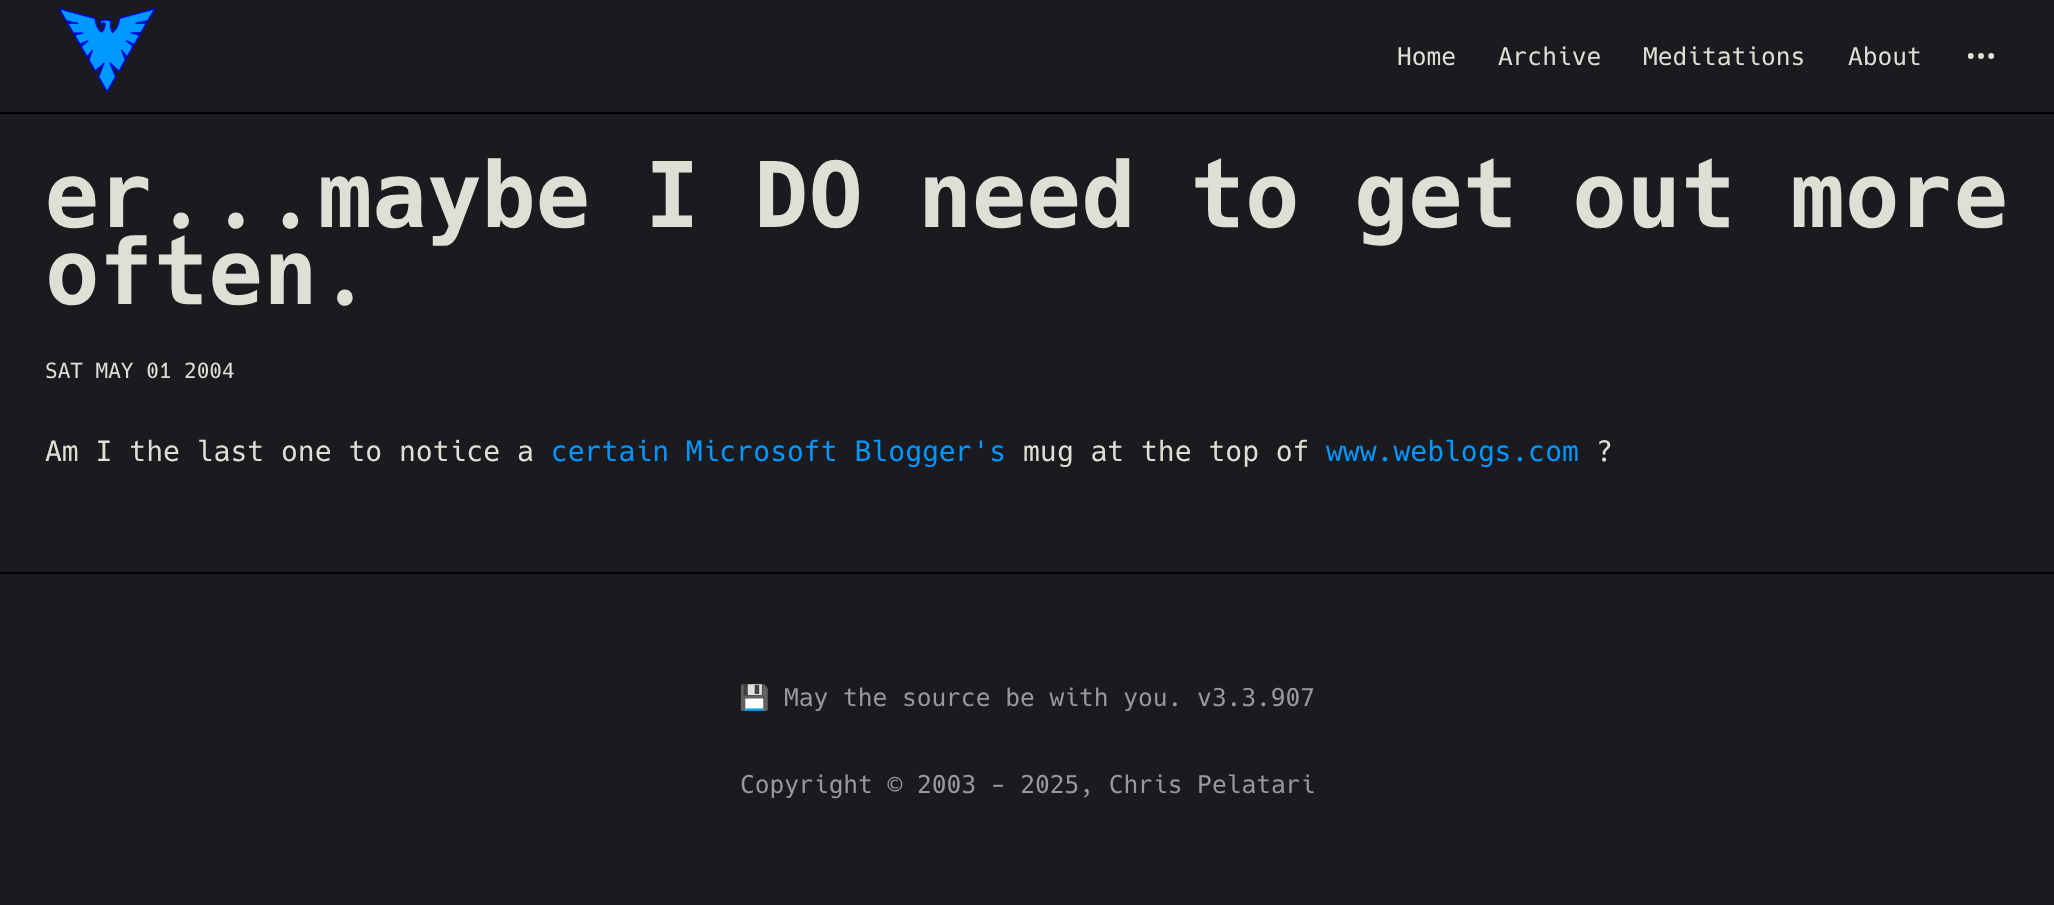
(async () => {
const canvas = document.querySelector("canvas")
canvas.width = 2054
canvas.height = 905
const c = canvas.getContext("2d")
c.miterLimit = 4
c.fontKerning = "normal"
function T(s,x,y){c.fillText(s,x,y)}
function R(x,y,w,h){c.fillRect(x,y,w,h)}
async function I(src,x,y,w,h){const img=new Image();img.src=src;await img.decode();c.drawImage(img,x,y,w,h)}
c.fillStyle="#1b1b1f"
R(0,0,2054,905)
await I("1.png",59,8,97,85)
c.font="24.5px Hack"
c.fillStyle="#dfdfd6"
T("Home",1397,65)
T("Archive",1498,65)
T("Meditations",1643,65)
T("About",1848,65)
c.beginPath()
c.arc(1981,56,1.5,0,7)
c.strokeStyle="#dfdfd6"
c.lineWidth=2.9
c.stroke()
c.beginPath()
c.arc(1991.2,56,1.5,0,7)
c.stroke()
c.beginPath()
c.arc(1970.8,56,1.5,0,7)
c.stroke()
c.fillStyle="#000"
R(0,112,2054,2)
c.font="bold 90.6px Hack"
c.fillStyle="#dfdfd6"
T("er...maybe I DO need to get out more",45,227)
T("often.",45,304)
c.font="21px Hack"
T("SAT MAY 01 2004",45,378)
c.font="28px Hack"
T("Am I the last one to notice a",45,461)
c.fillStyle="#0098ff"
T("certain Microsoft Blogger's",551,461)
c.fillStyle="#dfdfd6"
T("mug at the top of",1023,461)
c.fillStyle="#0098ff"
T("www.weblogs.com",1326,461)
c.fillStyle="#dfdfd6"
T("?",1596,461)
c.fillStyle="#000"
R(0,572,2054,2)
c.font="24.5px Noto Color Emoji"
c.fillStyle="#98989f"
T("💾",739,706)
c.font="24.5px Hack"
T("May the source be with you. v3.3.907",784,706)
T("Copyright © 2003 - 2025, Chris Pelatari",740,793)
})()
